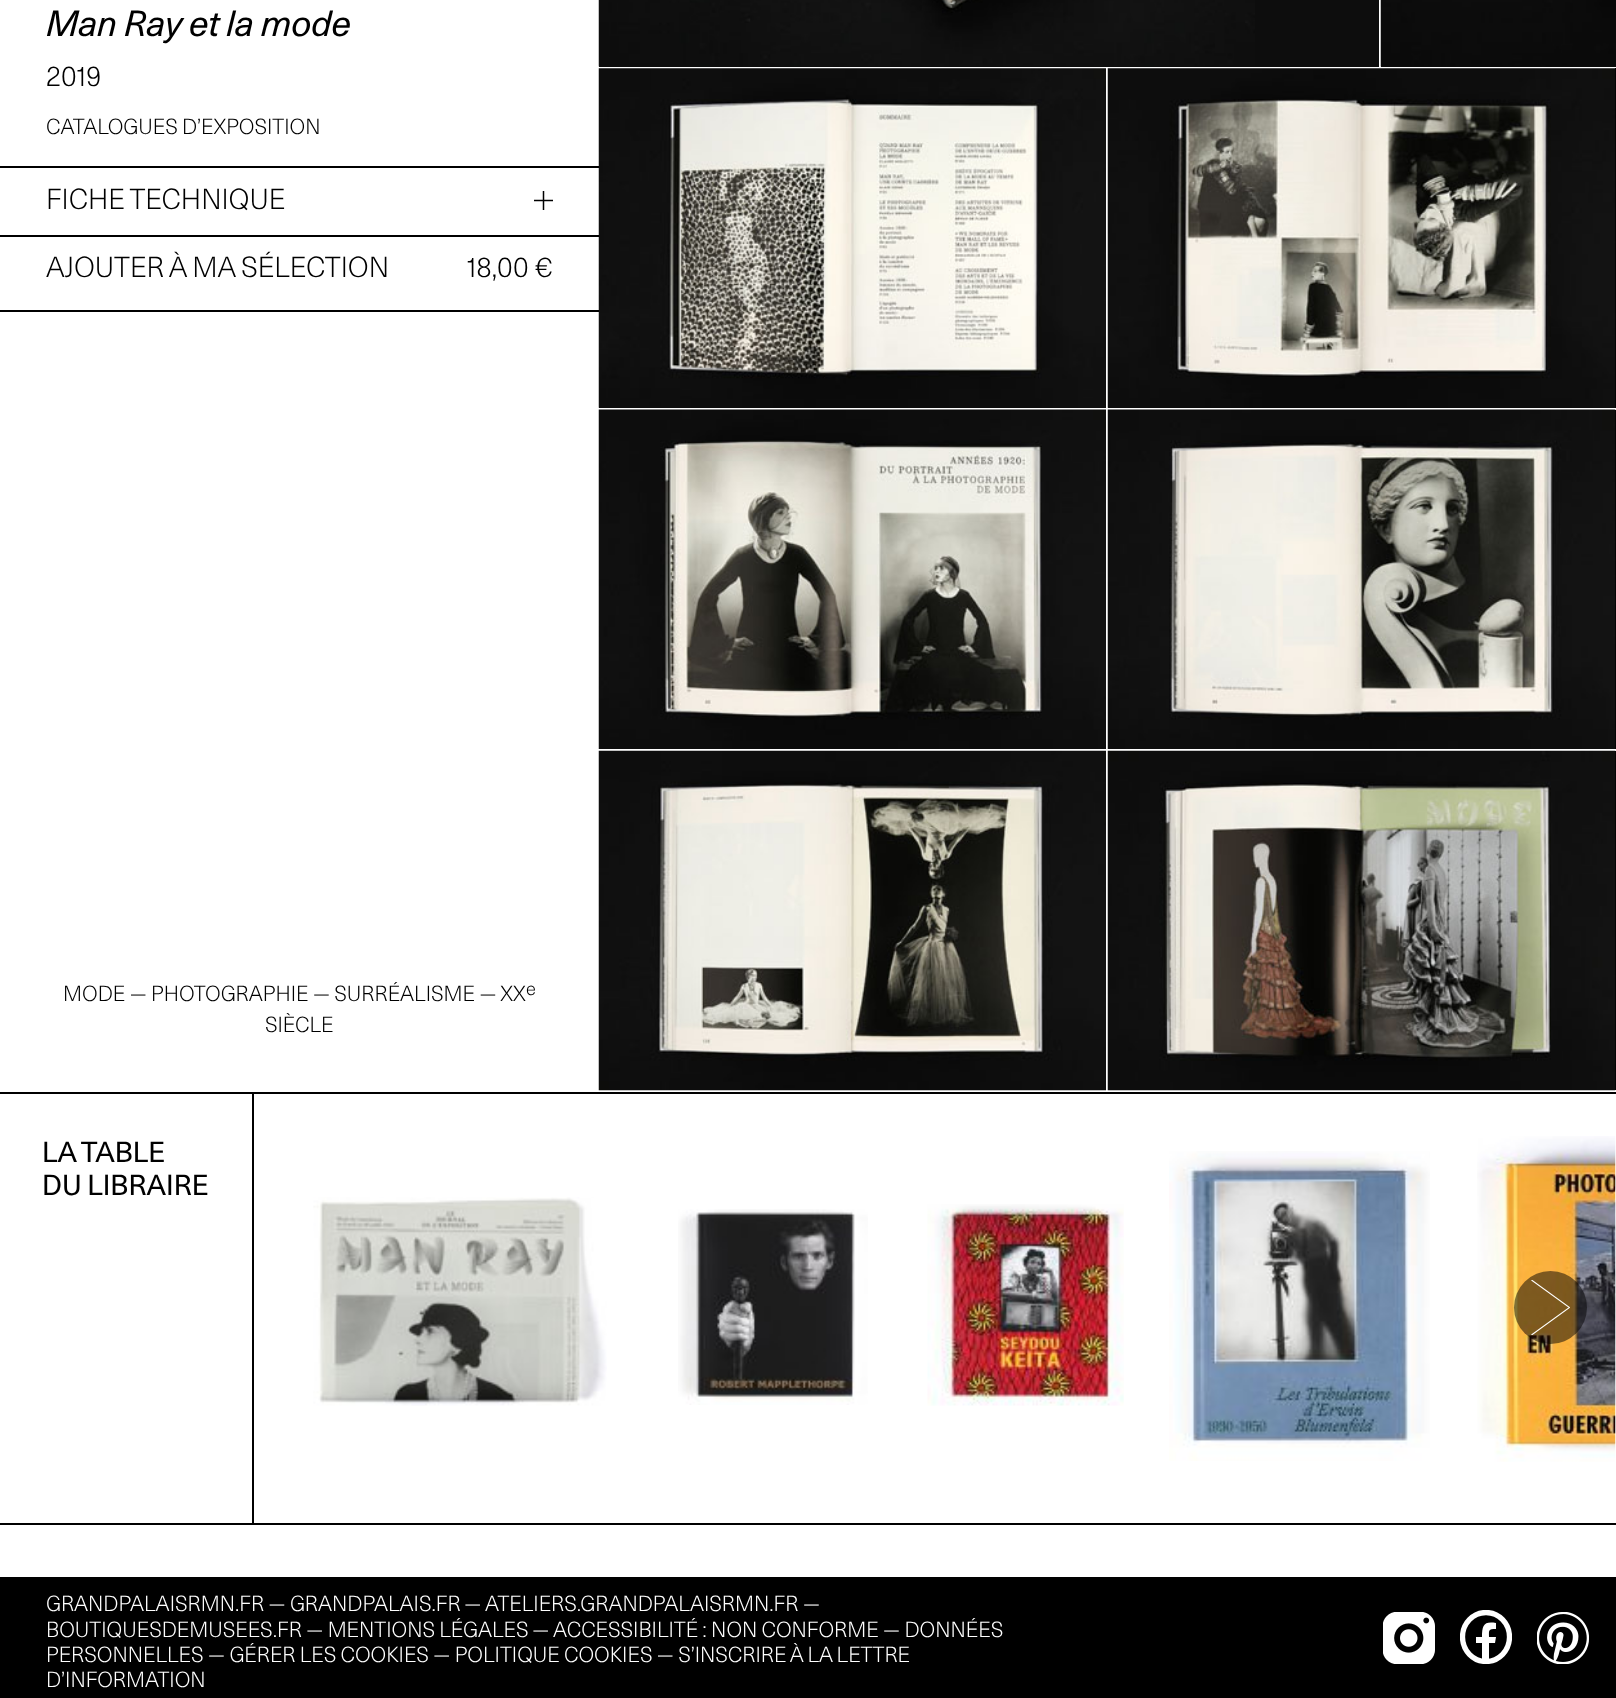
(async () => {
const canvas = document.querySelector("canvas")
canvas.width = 1616
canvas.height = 1698
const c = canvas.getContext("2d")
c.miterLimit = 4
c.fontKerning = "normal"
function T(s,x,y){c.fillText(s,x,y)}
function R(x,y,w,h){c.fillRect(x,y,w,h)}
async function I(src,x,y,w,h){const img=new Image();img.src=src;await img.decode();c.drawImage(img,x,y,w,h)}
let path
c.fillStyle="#fff"
R(0,0,1616,1698)
c.font="italic 35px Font"
c.fillStyle="#000"
T("Man Ray et la mode",46,36)
c.fillStyle="#0d0d0d"
R(599,0,1017,408)
c.fillStyle="#fff"
R(599,67,1017,2)
await I("3.png",598,68,508,340)
c.fillStyle="#000"
R(0,166,599,2)
c.font="300 28px Font"
T("2019",46,86)
c.font="300 21px Font"
T("CATALOGUES D’EXPOSITION",46,134)
R(0,235,599,2)
path = new Path2D("M534 200.5h19m-9.5 9.5v-19")
c.strokeStyle="#000"
c.lineWidth=1.5
c.stroke(path)
c.font="300 28px Font"
T("FICHE TECHNIQUE",46,209)
R(0,310,599,2)
T("AJOUTER À MA SÉLECTION",46,277)
T("18,00 €",467,277)
c.font="300 21px Font"
T("MODE — PHOTOGRAPHIE — SURRÉALISME — XX",63,1001)
c.font="300 18px Font"
T("e",526,995)
c.font="300 21px Font"
T("SIÈCLE",265,1032)
c.fillStyle="#fff"
R(1379,0,2,67)
await I("1.png",598,0,657,67)
await I("2.png",1380,0,236,67)
R(1106,68,2,342)
c.fillStyle="#000"
R(1615,68,1,1024)
c.fillStyle="#fff"
R(1615,408,1,2)
await I("4.png",1107,68,509,340)
await I("5.png",598,409,508,340)
R(1615,749,1,2)
await I("6.png",1107,409,509,340)
await I("7.png",598,750,508,341)
R(1615,1090,1,2)
await I("8.png",1107,750,509,341)
c.fillStyle="#000"
R(0,1092,1616,2)
R(0,1523,1616,2)
c.font="28px Font"
T("LA TABLE",42,1162)
T("DU LIBRAIRE",42,1195)
R(252,1094,2,429)
await I("9.png",313,1197,294,209)
await I("10.png",678,1209,190,196)
await I("11.png",927,1204,197,202)
await I("12.png",1169,1151,261,310)
await I("13.png",1477,1136,139,326)
c.fillStyle="#00000080"
c.beginPath()
c.arc(1550.5,1307.5,36.5,0,7)
c.fill()
c.save()
c.beginPath()
c.rect(1531,1280,39,55)
c.clip()
path = new Path2D("M1531.5 1335l38-27.5l-38-27.5")
c.strokeStyle="#fff"
c.lineWidth=1.1
c.stroke(path)
c.restore()
c.fillStyle="#000"
R(0,1577,1616,121)
c.font="300 21px Font"
c.fillStyle="#fff"
T("GRANDPALAISRMN.FR — GRANDPALAIS.FR",46,1611)
T("—",464,1611)
T("ATELIERS.GRANDPALAISRMN.FR —",485,1611)
T("BOUTIQUESDEMUSEES.FR — MENTIONS LÉGALES",46,1637)
T("—",532,1637)
T("ACCESSIBILITÉ : NON CONFORME — DONNÉES",553,1637)
T("PERSONNELLES — GÉRER LES COOKIES — POLITIQUE COOKIES — S’INSCRIRE À LA LETTRE",46,1662)
T("D’INFORMATION",46,1687)
await I("14.png",1383,1612,52,52)
c.save()
c.beginPath()
c.rect(1460,1610,52,54)
c.clip()
c.beginPath()
c.ellipse(1486,1637,23.5,24.5,0,0,7)
c.strokeStyle="#fff"
c.lineWidth=5.3
c.stroke()
c.restore()
path = new Path2D("M1489 1643h6l1-6h-7c0-7-1-8 7-8v-6c-12-2-14 2-14 14h-6v6h6v18h7zm-27-4h0")
c.fill(path)
await I("15.png",1537,1612,52,52)
})()
